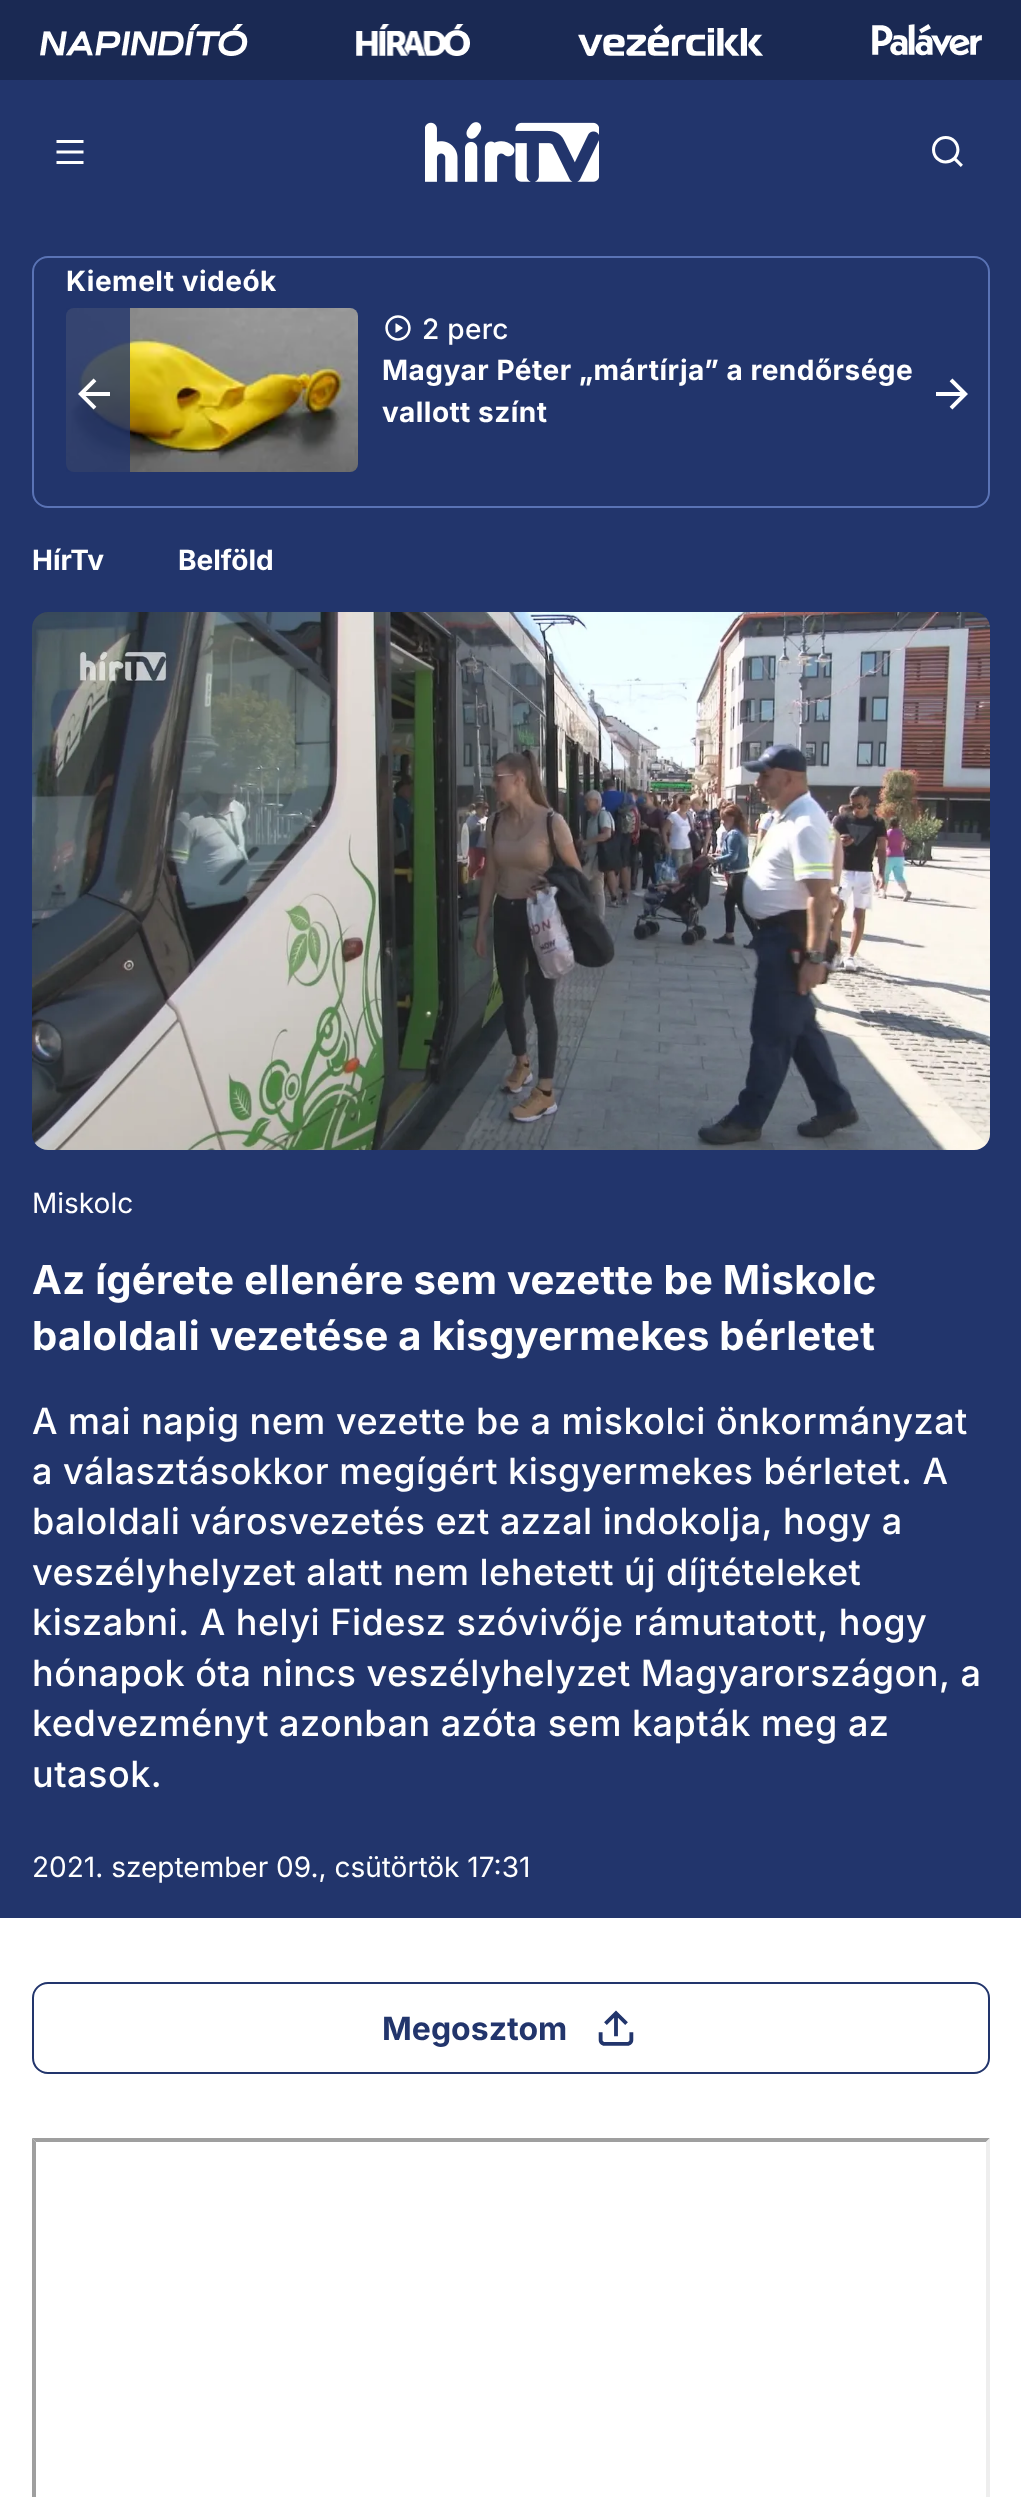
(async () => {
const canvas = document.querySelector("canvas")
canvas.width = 1021
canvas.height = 2497
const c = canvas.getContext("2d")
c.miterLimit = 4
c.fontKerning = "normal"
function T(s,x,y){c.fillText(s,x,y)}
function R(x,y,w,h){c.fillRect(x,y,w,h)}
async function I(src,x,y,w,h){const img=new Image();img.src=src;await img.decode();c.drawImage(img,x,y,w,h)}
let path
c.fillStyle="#fff"
R(0,0,1021,2497)
c.fillStyle="#1a2953"
R(0,0,1021,80)
await I("1.png",40,24,208,32)
await I("2.png",356,24,114,32)
await I("3.png",578,24,185,32)
await I("4.png",872,24,110,32)
c.fillStyle="#22356c"
R(0,80,1021,1838)
await I("5.png",56,140,28,24)
await I("6.png",425,122,174,60)
await I("7.png",932,136,31,31)
c.beginPath()
c.roundRect(33,257,956,250,15)
c.strokeStyle="#5a73b5"
c.lineWidth=2
c.stroke()
c.letterSpacing="0.5px"
c.font="bold 28px Inter"
c.fillStyle="#fff"
T("Kiemelt videók",66,291)
await I("10.png",66,308,292,164)
c.fillStyle="#22356ccc"
R(66,308,64,164)
await I("8.png",78,378,32,32)
await I("9.png",936,378,32,32)
await I("11.png",385,315,26,26)
c.letterSpacing="0.3px"
c.font="500 28px Inter"
c.fillStyle="#fff"
T("2 perc",422,339)
c.letterSpacing="0.5px"
c.font="bold 28px Inter"
T("Magyar Péter „mártírja” a rendőrsége",382,380)
T("vallott színt",382,422)
c.letterSpacing="0px"
T("HírTv",32,570)
T("Belföld",178,570)
await I("12.png",32,612,958,538)
c.font="28px Inter"
T("Miskolc",32,1213)
c.letterSpacing="0.3px"
c.font="bold 40px Inter"
T("Az ígérete ellenére sem vezette be Miskolc",32,1294)
T("baloldali vezetése a kisgyermekes bérletet",32,1350)
c.letterSpacing="0.5px"
c.font="500 36px Inter"
T("A mai napig nem vezette be a miskolci önkormányzat",32,1434)
T("a választásokkor megígért kisgyermekes bérletet. A",32,1484)
T("baloldali városvezetés ezt azzal indokolja, hogy a",32,1534)
T("veszélyhelyzet alatt nem lehetett új díjtételeket",32,1585)
T("kiszabni. A helyi Fidesz szóvivője rámutatott, hogy",32,1635)
T("hónapok óta nincs veszélyhelyzet Magyarországon, a",32,1686)
T("kedvezményt azonban azóta sem kapták meg az",32,1736)
T("utasok.",32,1787)
c.letterSpacing="0px"
c.font="28px Inter"
T("2021. szeptember 09., csütörtök 17:31",32,1877)
c.beginPath()
c.roundRect(33,1983,956,90,15)
c.strokeStyle="#22356c"
c.stroke()
c.font="bold 32px Inter"
c.fillStyle="#22356c"
T("Megosztom",382,2040)
await I("13.png",598,2010,36,36)
c.fillStyle="#9f9f9f"
path = new Path2D("M32 2138h958l-4 4h-950z")
c.fill(path)
c.fillStyle="#eee"
path = new Path2D("M990 2138v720l-4-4v-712z")
c.fill(path)
c.fillStyle="#9f9f9f"
path = new Path2D("M32 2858v-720l4 4v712z")
c.fill(path)
})()
